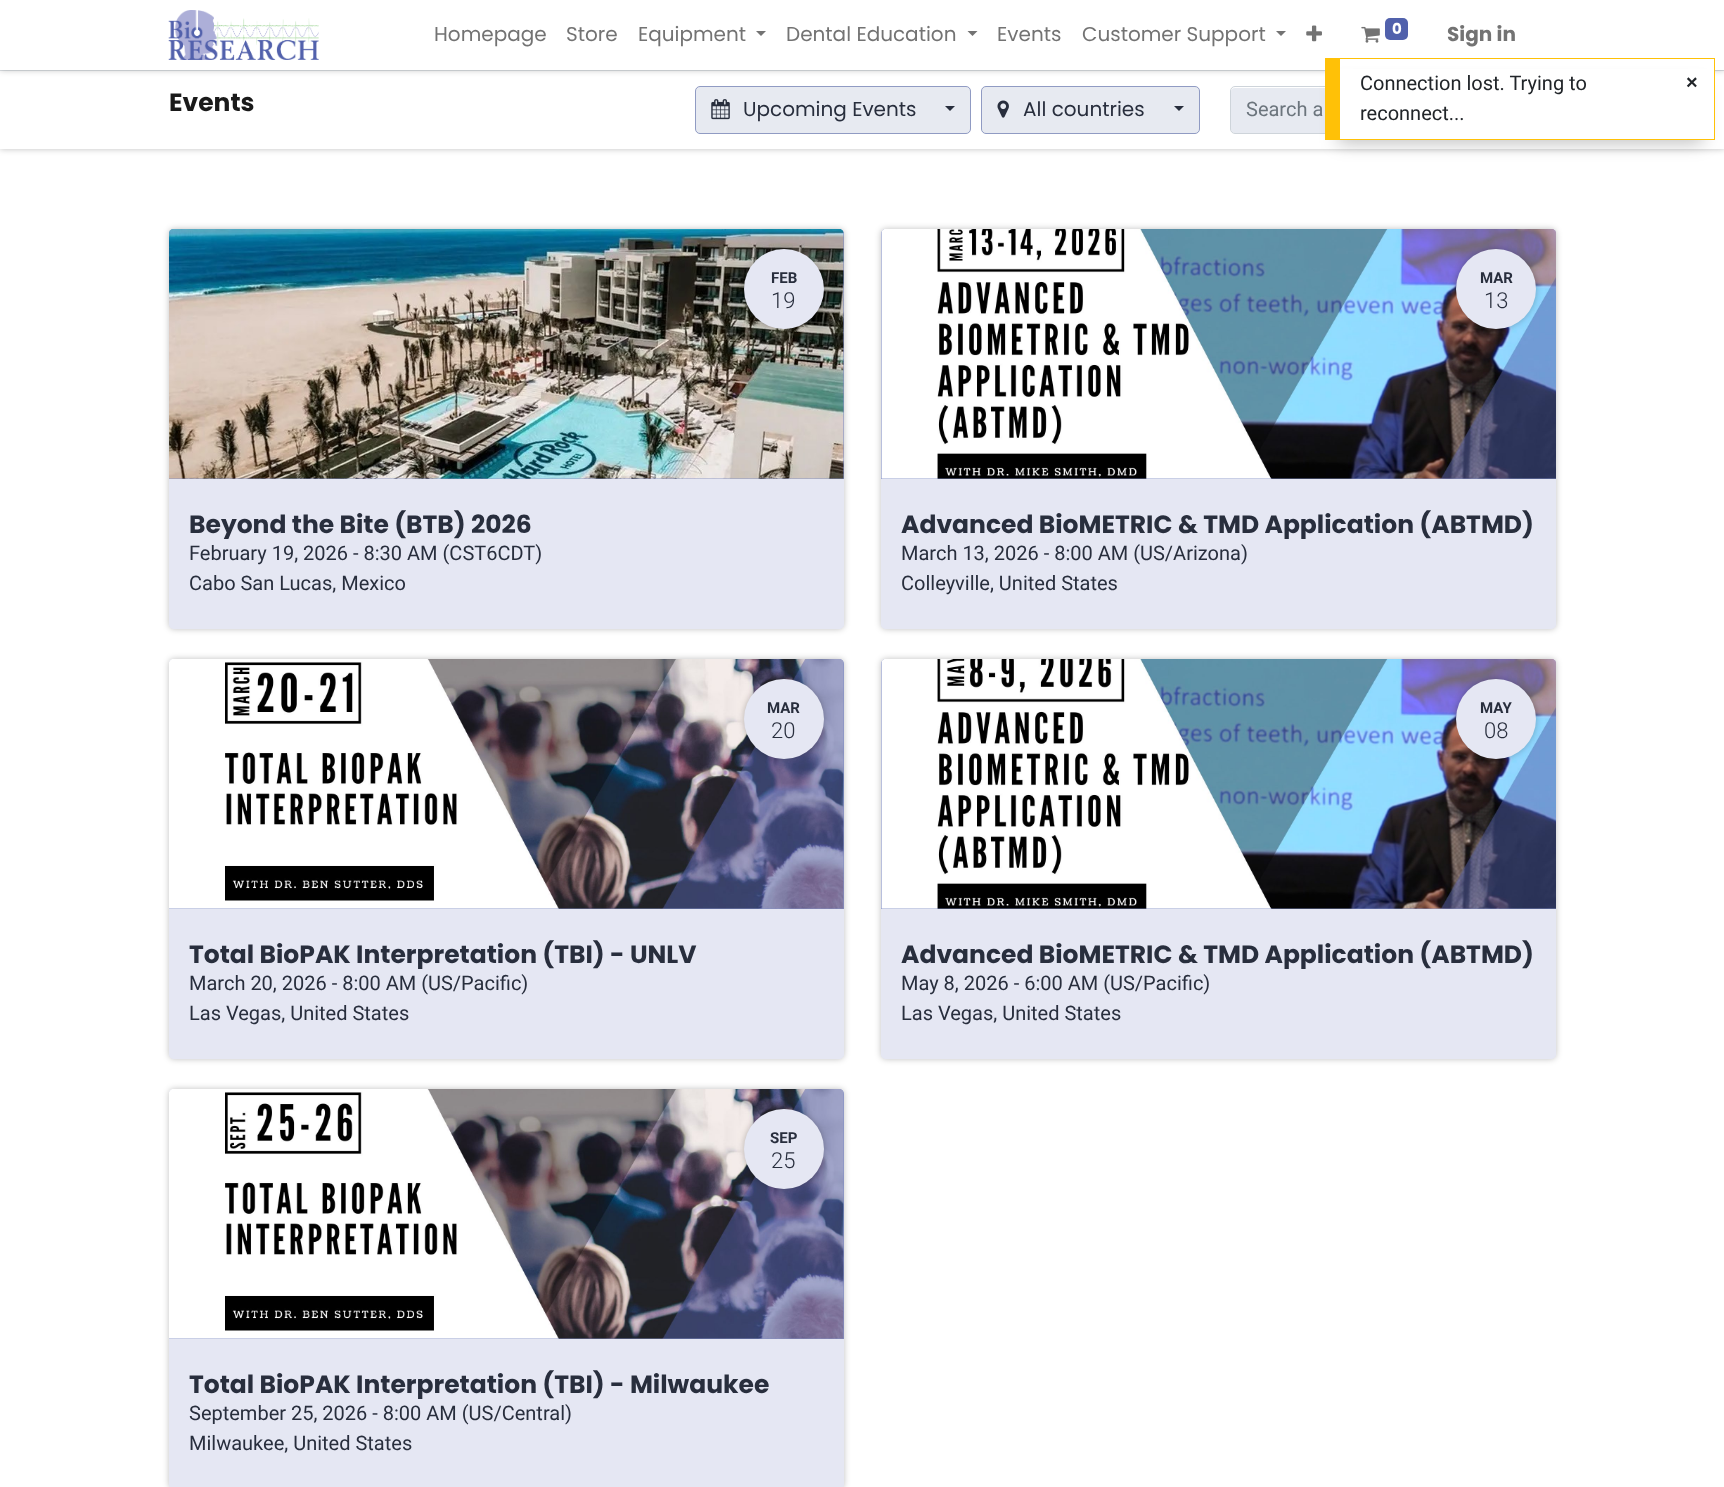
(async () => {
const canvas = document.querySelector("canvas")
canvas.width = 1724
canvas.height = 1487
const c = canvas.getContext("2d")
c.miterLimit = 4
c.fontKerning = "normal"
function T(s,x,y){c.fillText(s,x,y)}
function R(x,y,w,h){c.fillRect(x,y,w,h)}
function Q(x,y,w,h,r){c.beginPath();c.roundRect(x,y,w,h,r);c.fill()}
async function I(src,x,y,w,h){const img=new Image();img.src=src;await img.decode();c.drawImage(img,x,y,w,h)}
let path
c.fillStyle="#fff"
R(0,0,1724,1487)
c.fillStyle="#00000040"
c.filter="blur(3px)"
c.beginPath()
c.rect(0,70,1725,79)
c.fill()
c.filter="none"
c.fillStyle="#fff"
R(0,71,1724,78)
c.fillStyle="#dee2e6"
R(0,70,1724,1)
c.fillStyle="#00000040"
c.filter="blur(3px)"
c.beginPath()
c.rect(0,0,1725,70)
c.fill()
c.filter="none"
c.fillStyle="#fff"
R(0,0,1724,70)
await I("1.png",168,10,151,50)
c.font="20px Poppins"
c.fillStyle="#737373"
T("Homepage",434,41)
T("Store",566,41)
T("Equipment",638,41)
path = new Path2D("M756 31h10l-5 5z")
c.fill(path)
T("Dental Education",786,41)
path = new Path2D("M967.5 31h10l-5 5z")
c.fill(path)
T("Events",997,41)
T("Customer Support",1082,41)
path = new Path2D("M1276 31h10l-5 5z")
c.fill(path)
await I("2.png",1306,25,16,17)
await I("3.png",1361,26,19,17)
c.fillStyle="#5161ac"
Q(1385,18,23,22,5)
c.font="bold 15px Poppins"
c.fillStyle="#fff"
T("0",1392,34)
c.font="bold 20px Poppins"
c.fillStyle="#737373"
T("Sign in",1447,41)
c.font="bold 25px Poppins"
c.fillStyle="#1a1a1a"
T("Events",169,111)
c.fillStyle="#e7eaf1"
c.beginPath()
c.roundRect(695.5,86.5,275,47,4.5)
c.fill()
c.strokeStyle="#909bc3"
c.stroke()
await I("4.png",711,99,19,21)
c.font="20px Poppins"
c.fillStyle="#282e3d"
T("Upcoming Events",743,116)
path = new Path2D("M945 106h10l-5 5z")
c.fill(path)
c.fillStyle="#e7eaf1"
c.beginPath()
c.roundRect(981.5,86.5,218,47,4.5)
c.fill()
c.stroke()
await I("5.png",997,100,12,18)
c.fillStyle="#282e3d"
T("All countries",1023,116)
path = new Path2D("M1174 106h10l-5 5z")
c.fill(path)
c.fillStyle="#e7eaf1"
c.beginPath()
c.roundRect(1231,88,273,45,[4,0,0,4])
c.fill()
c.beginPath()
c.roundRect(1230.5,86.5,274,47,[4.5,0,0,4.5])
c.strokeStyle="#ced4da"
c.stroke()
c.font="20px Roboto"
c.fillStyle="#6c757d"
T("Search a",1246,116)
c.fillStyle="#00000040"
c.filter="blur(3px)"
c.beginPath()
c.roundRect(169,229,675,400,5)
c.fill()
c.filter="none"
c.fillStyle="#e5e7f3"
Q(169,229,675,400,5)
c.fillStyle="#8490c5"
c.beginPath()
c.roundRect(169,229,675,250,[5,5,0,0])
c.fill()
await I("6.png",169,229,675,250)
c.fillStyle="#00000040"
c.filter="blur(3px)"
c.beginPath()
c.roundRect(744,249,80,80,40)
c.fill()
c.filter="none"
c.fillStyle="#e5e7f3"
c.beginPath()
c.arc(784,289,40,0,7)
c.fill()
c.font="bold 15px Roboto"
c.fillStyle="#282e3d"
T("FEB",771,283)
c.font="300 22px Roboto"
T("19",771,308)
c.fillStyle="#e5e7f3"
c.beginPath()
c.roundRect(169,479,675,150,[4,4,5,5])
c.fill()
c.save()
c.beginPath()
c.rect(189,509,635,30)
c.clip()
c.font="bold 25px Poppins"
c.fillStyle="#282e3d"
T("Beyond the Bite (BTB) 2026",189,533)
c.restore()
c.font="20px Roboto"
c.fillStyle="#282e3d"
T("February 19, 2026 - 8:30 AM (CST6CDT)",189,560)
T("Cabo San Lucas, Mexico",189,590)
c.fillStyle="#00000040"
c.filter="blur(3px)"
c.beginPath()
c.roundRect(881,229,675,400,5)
c.fill()
c.filter="none"
c.fillStyle="#e5e7f3"
Q(881,229,675,400,5)
c.fillStyle="#8490c5"
c.beginPath()
c.roundRect(881,229,675,250,[5,5,0,0])
c.fill()
await I("7.png",881,229,675,250)
c.fillStyle="#00000040"
c.filter="blur(3px)"
c.beginPath()
c.roundRect(1456,249,80,80,40)
c.fill()
c.filter="none"
c.fillStyle="#e5e7f3"
c.beginPath()
c.arc(1496,289,40,0,7)
c.fill()
c.font="bold 15px Roboto"
c.fillStyle="#282e3d"
T("MAR",1480,283)
c.font="300 22px Roboto"
T("13",1484,308)
c.fillStyle="#e5e7f3"
c.beginPath()
c.roundRect(881,479,675,150,[4,4,5,5])
c.fill()
c.font="bold 25px Poppins"
c.fillStyle="#282e3d"
T("Advanced BioMETRIC",901,533)
c.save()
c.beginPath()
c.rect(901,509,635,30)
c.clip()
T("& TMD Application (ABTMD)",1178,533)
c.restore()
c.font="20px Roboto"
T("March 13, 2026 - 8:00 AM (US/Arizona)",901,560)
T("Colleyville, United States",901,590)
c.fillStyle="#00000040"
c.filter="blur(3px)"
c.beginPath()
c.roundRect(169,659,675,400,5)
c.fill()
c.filter="none"
c.fillStyle="#e5e7f3"
Q(169,659,675,400,5)
c.fillStyle="#8490c5"
c.beginPath()
c.roundRect(169,659,675,250,[5,5,0,0])
c.fill()
await I("8.png",169,659,675,250)
c.fillStyle="#00000040"
c.filter="blur(3px)"
c.beginPath()
c.roundRect(744,679,80,80,40)
c.fill()
c.filter="none"
c.fillStyle="#e5e7f3"
c.beginPath()
c.arc(784,719,40,0,7)
c.fill()
c.font="bold 15px Roboto"
c.fillStyle="#282e3d"
T("MAR",767,713)
c.font="300 22px Roboto"
T("20",771,738)
c.fillStyle="#e5e7f3"
c.beginPath()
c.roundRect(169,909,675,150,[4,4,5,5])
c.fill()
c.save()
c.beginPath()
c.rect(189,939,635,30)
c.clip()
c.font="bold 25px Poppins"
c.fillStyle="#282e3d"
T("Total BioPAK Interpretation (TBI) - UNLV",189,963)
c.restore()
c.font="20px Roboto"
c.fillStyle="#282e3d"
T("March 20, 2026 - 8:00 AM (US/Pacific)",189,990)
T("Las Vegas, United States",189,1020)
c.fillStyle="#00000040"
c.filter="blur(3px)"
c.beginPath()
c.roundRect(881,659,675,400,5)
c.fill()
c.filter="none"
c.fillStyle="#e5e7f3"
Q(881,659,675,400,5)
c.fillStyle="#8490c5"
c.beginPath()
c.roundRect(881,659,675,250,[5,5,0,0])
c.fill()
await I("9.png",881,659,675,250)
c.fillStyle="#00000040"
c.filter="blur(3px)"
c.beginPath()
c.roundRect(1456,679,80,80,40)
c.fill()
c.filter="none"
c.fillStyle="#e5e7f3"
c.beginPath()
c.arc(1496,719,40,0,7)
c.fill()
c.font="bold 15px Roboto"
c.fillStyle="#282e3d"
T("MAY",1480,713)
c.font="300 22px Roboto"
T("08",1484,738)
c.fillStyle="#e5e7f3"
c.beginPath()
c.roundRect(881,909,675,150,[4,4,5,5])
c.fill()
c.font="bold 25px Poppins"
c.fillStyle="#282e3d"
T("Advanced BioMETRIC",901,963)
c.save()
c.beginPath()
c.rect(901,939,635,30)
c.clip()
T("& TMD Application (ABTMD)",1178,963)
c.restore()
c.font="20px Roboto"
T("May 8, 2026 - 6:00 AM (US/Pacific)",901,990)
T("Las Vegas, United States",901,1020)
c.fillStyle="#00000040"
c.filter="blur(3px)"
c.beginPath()
c.roundRect(169,1089,675,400,5)
c.fill()
c.filter="none"
c.fillStyle="#e5e7f3"
Q(169,1089,675,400,5)
c.fillStyle="#8490c5"
c.beginPath()
c.roundRect(169,1089,675,250,[5,5,0,0])
c.fill()
await I("10.png",169,1089,675,250)
c.fillStyle="#00000040"
c.filter="blur(3px)"
c.beginPath()
c.roundRect(744,1109,80,80,40)
c.fill()
c.filter="none"
c.fillStyle="#e5e7f3"
c.beginPath()
c.arc(784,1149,40,0,7)
c.fill()
c.font="bold 15px Roboto"
c.fillStyle="#282e3d"
T("SEP",770,1143)
c.font="300 22px Roboto"
T("25",771,1168)
c.fillStyle="#e5e7f3"
path = new Path2D("M173 1339h667c2 0 4 2 4 4v141c0 3-2 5-5 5h-665c-3 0-5-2-5-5v-141c0-2 2-4 4-4z")
c.fill(path)
c.save()
c.beginPath()
c.rect(189,1369,635,30)
c.clip()
c.font="bold 25px Poppins"
c.fillStyle="#282e3d"
T("Total BioPAK Interpretation (TBI) - Milwaukee",189,1393)
c.restore()
c.font="20px Roboto"
c.fillStyle="#282e3d"
T("September 25, 2026 - 8:00 AM (US/Central)",189,1420)
T("Milwaukee, United States",189,1450)
c.fillStyle="#00000040"
c.filter="blur(9px)"
c.beginPath()
c.rect(1338,85,365,58)
c.fill()
c.filter="none"
c.fillStyle="#fff"
R(1340,69,374,70)
c.fillStyle="#ffc107"
R(1340,58,375,1)
R(1714,58,1,82)
R(1340,139,375,1)
R(1325,58,15,82)
c.fillStyle="#212529"
T("Connection lost. Trying to",1360,90)
T("reconnect...",1360,120)
c.font="bold 20px Liberation Sans"
T("×",1686,89)
})()
